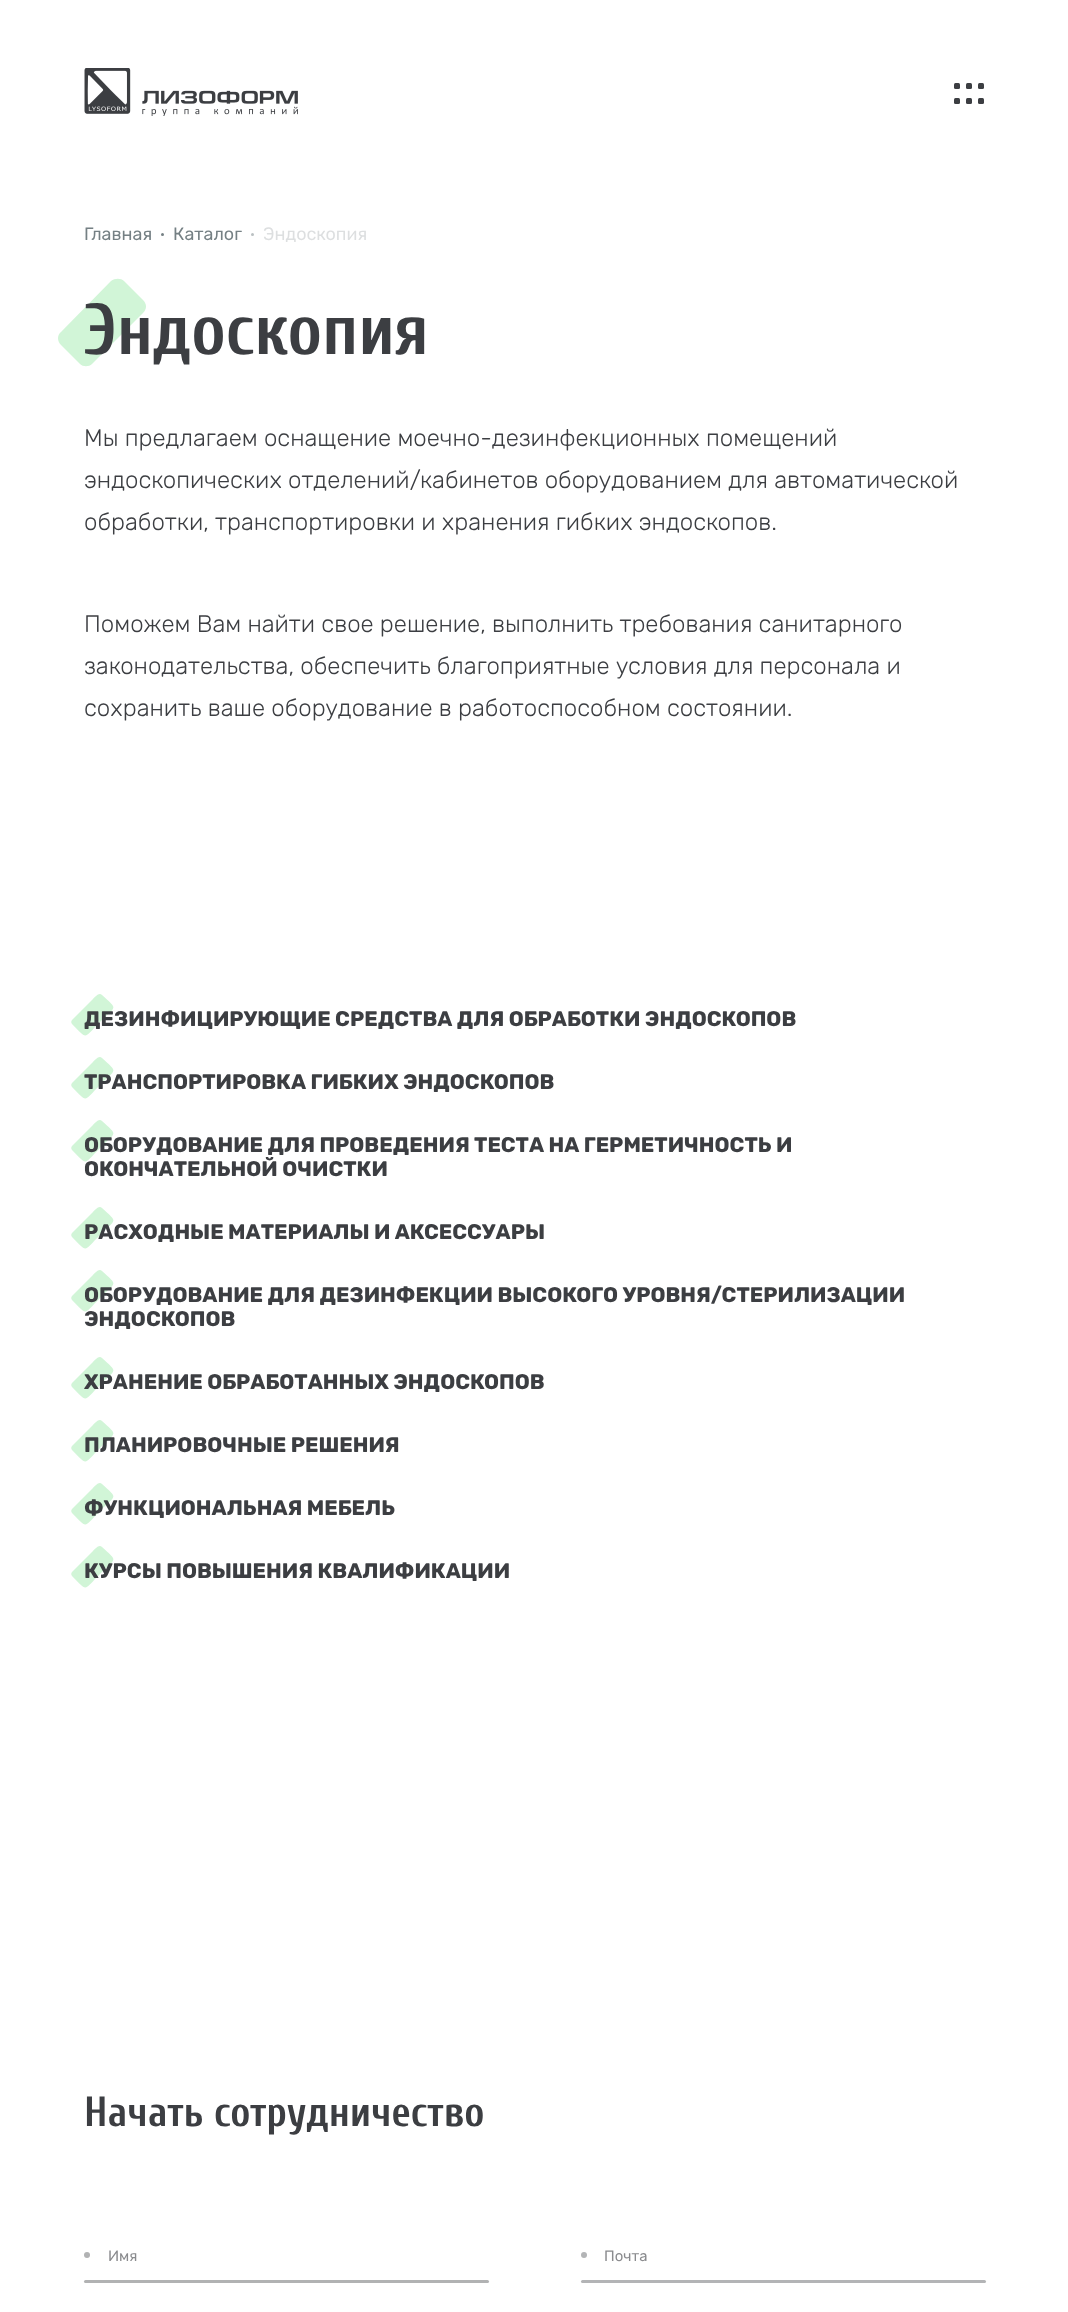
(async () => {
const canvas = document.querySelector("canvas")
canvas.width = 1068
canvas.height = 2312
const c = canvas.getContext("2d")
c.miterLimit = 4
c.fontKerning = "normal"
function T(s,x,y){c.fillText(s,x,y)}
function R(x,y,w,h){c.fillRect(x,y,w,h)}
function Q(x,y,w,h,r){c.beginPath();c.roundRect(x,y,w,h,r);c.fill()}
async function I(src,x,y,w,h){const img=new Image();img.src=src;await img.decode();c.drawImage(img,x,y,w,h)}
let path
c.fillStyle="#fff"
R(0,0,1068,2312)
await I("1.png",84,68,214,48)
c.fillStyle="#3c3e42"
Q(954,83,6,6,1.5)
Q(954,98,6,6,1.5)
Q(966,83,6,6,1.5)
Q(966,98,6,6,1.5)
Q(978,83,6,6,1.5)
Q(978,98,6,6,1.5)
c.font="18px Rubik"
c.fillStyle="#758084"
T("Главная",84,240)
c.beginPath()
c.arc(162.5,234.5,1.5,0,7)
c.fill()
T("Каталог",173,240)
c.fillStyle="#bac0c2"
c.beginPath()
c.arc(252.5,234.5,1.5,0,7)
c.fill()
c.fillStyle="#dddfe0"
T("Эндоскопия",263,240)
c.fillStyle="#d1f5d7"
path = new Path2D("M61 332l50-51c4-3 10-3 13 0l19 19c4 4 4 9 0 13l-51 51c-3 3-9 3-12 0l-19-19c-4-4-4-10 0-13z")
c.fill(path)
c.font="bold 72px Cuprum"
c.fillStyle="#3c3e42"
T("Эндоскопия",84,354)
c.font="300 24px Rubik"
T("Мы предлагаем оснащение моечно-дезинфекционных помещений",84,446)
T("эндоскопических отделений/кабинетов оборудованием для автоматической",84,488)
T("обработки, транспортировки и хранения гибких эндоскопов.",84,530)
T("Поможем Вам найти свое решение, выполнить требования санитарного",84,632)
T("законодательства, обеспечить благоприятные условия для персонала и",84,674)
T("сохранить ваше оборудование в работоспособном состоянии.",84,716)
c.fillStyle="#d1f5d7"
path = new Path2D("M72 1020l21-21c2-2 6-7 9-4c16 15 15 10-2 27c-17 17-12 18-28 2c-1-1-1-3 0-4z")
c.fill(path)
c.font="bold 21px Rubik"
c.fillStyle="#3c3e42"
T("ДЕЗИНФИЦИРУЮЩИЕ СРЕДСТВА ДЛЯ ОБРАБОТКИ ЭНДОСКОПОВ",84,1026)
c.fillStyle="#d1f5d7"
path = new Path2D("M72 1083l21-21c2-2 6-7 9-4c16 15 15 10-2 27c-17 17-12 18-28 2c-1-1-1-3 0-4z")
c.fill(path)
c.fillStyle="#3c3e42"
T("ТРАНСПОРТИРОВКА ГИБКИХ ЭНДОСКОПОВ",84,1089)
c.fillStyle="#d1f5d7"
path = new Path2D("M72 1146l21-21c2-2 6-7 9-4c16 15 15 10-2 27c-17 17-12 18-28 2c-1-1-1-3 0-4z")
c.fill(path)
c.fillStyle="#3c3e42"
T("ОБОРУДОВАНИЕ ДЛЯ ПРОВЕДЕНИЯ ТЕСТА НА ГЕРМЕТИЧНОСТЬ И",84,1152)
T("ОКОНЧАТЕЛЬНОЙ ОЧИСТКИ",84,1176)
c.fillStyle="#d1f5d7"
path = new Path2D("M72 1233l21-21c2-2 6-7 9-4c16 15 15 10-2 27c-17 17-12 18-28 2c-1-1-1-3 0-4z")
c.fill(path)
c.fillStyle="#3c3e42"
T("РАСХОДНЫЕ МАТЕРИАЛЫ И АКСЕССУАРЫ",84,1239)
c.fillStyle="#d1f5d7"
path = new Path2D("M72 1296l21-21c2-2 6-7 9-4c16 15 15 10-2 27c-17 17-12 18-28 2c-1-1-1-3 0-4z")
c.fill(path)
c.fillStyle="#3c3e42"
T("ОБОРУДОВАНИЕ ДЛЯ ДЕЗИНФЕКЦИИ ВЫСОКОГО УРОВНЯ/СТЕРИЛИЗАЦИИ",84,1302)
T("ЭНДОСКОПОВ",84,1326)
c.fillStyle="#d1f5d7"
path = new Path2D("M72 1383l21-21c2-2 6-7 9-4c16 15 15 10-2 27c-17 17-12 18-28 2c-1-1-1-3 0-4z")
c.fill(path)
c.fillStyle="#3c3e42"
T("ХРАНЕНИЕ ОБРАБОТАННЫХ ЭНДОСКОПОВ",84,1389)
c.fillStyle="#d1f5d7"
path = new Path2D("M72 1446l21-21c2-2 6-7 9-4c16 15 15 10-2 27c-17 17-12 18-28 2c-1-1-1-3 0-4z")
c.fill(path)
c.fillStyle="#3c3e42"
T("ПЛАНИРОВОЧНЫЕ РЕШЕНИЯ",84,1452)
c.fillStyle="#d1f5d7"
path = new Path2D("M72 1509l21-21c2-2 6-7 9-4c16 15 15 10-2 27c-17 17-12 18-28 2c-1-1-1-3 0-4z")
c.fill(path)
c.fillStyle="#3c3e42"
T("ФУНКЦИОНАЛЬНАЯ МЕБЕЛЬ",84,1515)
c.fillStyle="#d1f5d7"
path = new Path2D("M72 1572l21-21c2-2 6-7 9-4c16 15 15 10-2 27c-17 17-12 18-28 2c-1-1-1-3 0-4z")
c.fill(path)
c.fillStyle="#3c3e42"
T("КУРСЫ ПОВЫШЕНИЯ КВАЛИФИКАЦИИ",84,1578)
c.font="bold 42px Cuprum"
T("Начать сотрудничество",84,2126)
c.fillStyle="#b1b2b3"
c.beginPath()
c.arc(87,2255,3,0,7)
c.fill()
c.font="15px Rubik"
c.fillStyle="#8a8b8e"
T("Имя",108,2261)
c.fillStyle="#b1b2b3"
Q(84,2280,405,3,1.5)
c.fillStyle="#b3b4b6"
c.beginPath()
c.arc(584,2255,3,0,7)
c.fill()
c.fillStyle="#8a8b8e"
T("Почта",604,2261)
c.fillStyle="#b3b4b6"
Q(581,2280,405,3,1.5)
})()
